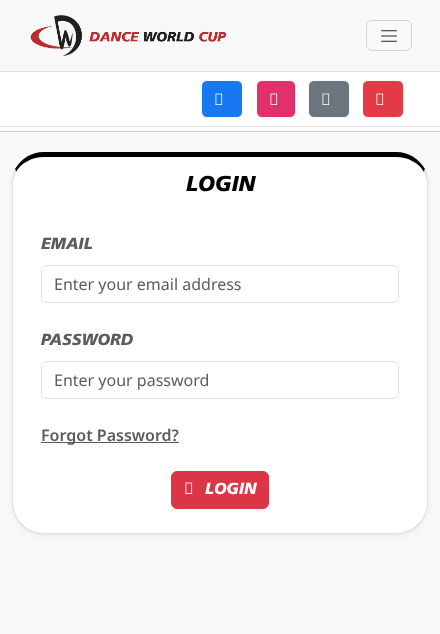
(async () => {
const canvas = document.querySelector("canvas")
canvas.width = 440
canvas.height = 634
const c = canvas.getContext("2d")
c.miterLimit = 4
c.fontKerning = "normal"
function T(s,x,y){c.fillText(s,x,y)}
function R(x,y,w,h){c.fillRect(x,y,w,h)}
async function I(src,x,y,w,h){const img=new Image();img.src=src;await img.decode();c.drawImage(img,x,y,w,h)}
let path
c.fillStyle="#f8f8f8"
R(0,0,440,634)
c.fillStyle="#fff"
R(0,72,440,59)
c.fillStyle="#ccc"
R(0,131,440,1)
c.fillStyle="#dee2e6"
R(0,71,440,1)
await I("1.png",30,15,197,41)
c.beginPath()
c.roundRect(366.5,20.5,45,30,5.5)
c.strokeStyle="#d3d4d5"
c.stroke()
await I("2.png",381,30,16,12)
R(0,126,440,1)
c.fillStyle="#1877f2"
c.beginPath()
c.roundRect(201.5,80.5,41,37,5.5)
c.fill()
c.strokeStyle="#f8f9fa"
c.stroke()
await I("3.png",215,93,8,12)
c.fillStyle="#e1306c"
c.beginPath()
c.roundRect(256.5,80.5,39,37,5.5)
c.fill()
c.stroke()
await I("4.png",270,93,8,12)
c.fillStyle="#6c757d"
c.beginPath()
c.roundRect(308.5,80.5,41,37,5.5)
c.fill()
c.stroke()
await I("5.png",322,93,8,12)
c.fillStyle="#e63946"
c.beginPath()
c.roundRect(362.5,80.5,41,37,5.5)
c.fill()
c.stroke()
await I("6.png",376,93,8,12)
c.fillStyle="#21252912"
c.filter="blur(2px)"
c.beginPath()
c.roundRect(12,154,416,382,32)
c.fill()
c.filter="none"
c.fillStyle="#fff"
path = new Path2D("M44 157h352c17 0 31 12 31 27v318c0 17-14 31-31 31h-352c-17 0-31-14-31-31v-318c0-15 14-27 31-27z")
c.fill(path)
c.fillStyle="#000"
path = new Path2D("M44 152c-13 0-23 7-29 17l1 3c5-9 16-15 28-15h352c12 0 23 6 28 15l1-3c-6-10-16-17-29-17z")
c.fill(path)
c.fillStyle="#dee2e6"
path = new Path2D("M428 502v-318c0-5-1-10-3-15l-1 3c2 4 3 8 3 12v318c0 8-3 16-9 22l1 1c5-6 9-14 9-23z")
c.fill(path)
path = new Path2D("M44 534h352c9 0 17-4 23-9l-1-1c-6 6-14 9-22 9h-352c-8 0-16-3-22-9l-1 1c6 5 14 9 23 9z")
c.fill(path)
path = new Path2D("M12 184v318c0 9 4 17 9 23l1-1c-6-6-9-14-9-22v-318c0-4 1-8 3-12l-1-3c-2 5-3 10-3 15z")
c.fill(path)
c.font="italic bold 21.5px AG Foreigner"
c.fillStyle="#000"
T("LOGIN",186,191)
c.font="italic bold 16px AG Foreigner"
c.fillStyle="#595c5f"
T("EMAIL",41,249)
c.beginPath()
c.roundRect(41.5,265.5,357,37,5.5)
c.strokeStyle="#dee2e6"
c.stroke()
c.font="16px Noto Sans"
T("Enter your email address",54,290)
c.font="italic bold 16px AG Foreigner"
T("PASSWORD",41,345)
c.beginPath()
c.roundRect(41.5,361.5,357,37,5.5)
c.stroke()
c.font="16px Noto Sans"
T("Enter your password",54,386)
R(41,442,138,1)
c.font="600 16px Noto Sans"
T("Forgot Password?",41,441)
c.fillStyle="#dc3545"
c.beginPath()
c.roundRect(171.5,471.5,97,37,5.5)
c.fill()
c.strokeStyle="#dc3545"
c.stroke()
await I("7.png",185,482,8,12)
c.font="italic bold 16px AG Foreigner"
c.fillStyle="#fff"
T("LOGIN",205,494)
})()
